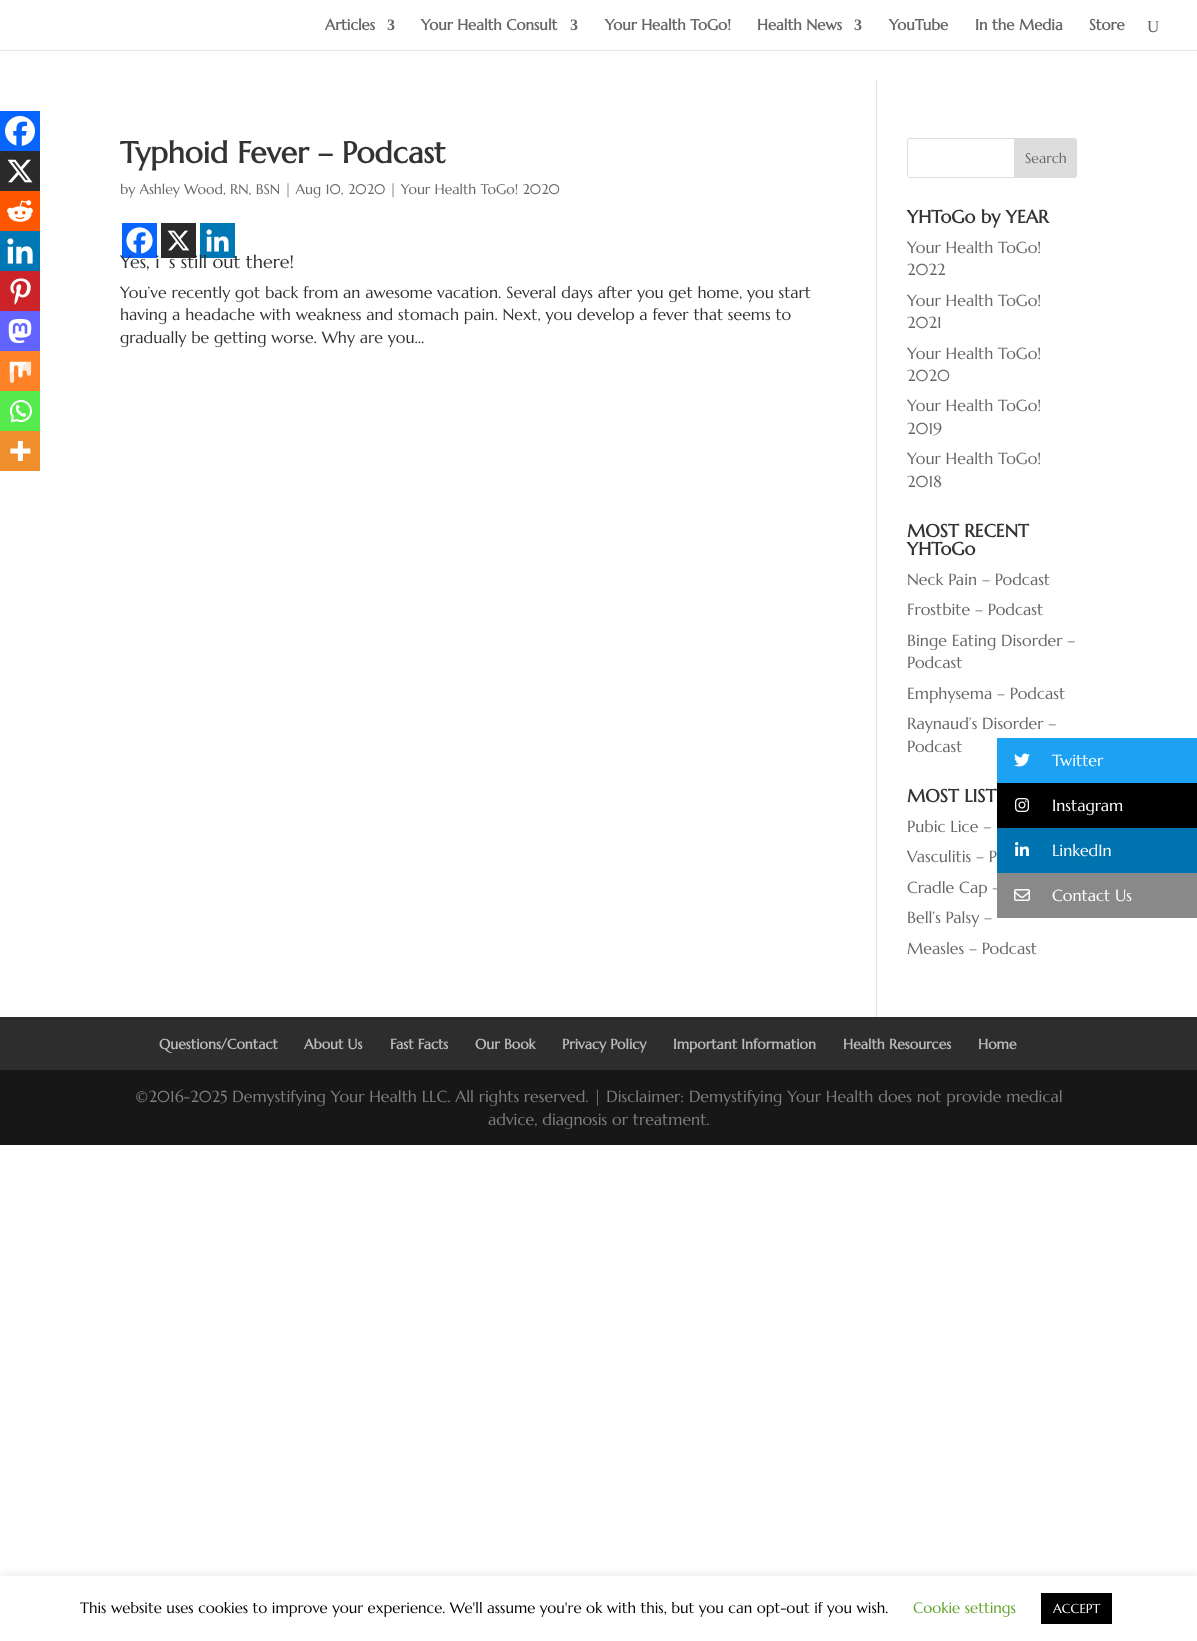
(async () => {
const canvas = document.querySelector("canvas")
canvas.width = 1197
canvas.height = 1641
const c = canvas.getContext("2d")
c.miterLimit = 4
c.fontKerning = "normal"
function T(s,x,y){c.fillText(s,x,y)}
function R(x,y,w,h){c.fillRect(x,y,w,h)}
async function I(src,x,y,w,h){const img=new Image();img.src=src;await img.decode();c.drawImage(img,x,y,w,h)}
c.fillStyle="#fff"
R(0,0,1197,1641)
c.fillStyle="#e6e6e6"
R(0,50,1197,1)
c.font="bold 15px Marcellus"
c.fillStyle="#666"
T("Articles",325,30)
c.font="bold 16px Liberation Serif"
T("3",387,30)
c.font="bold 15px Marcellus"
T("Your Health Consult",421,30)
c.font="bold 16px Liberation Serif"
T("3",570,30)
c.font="bold 15px Marcellus"
T("Your Health ToGo!",605,30)
T("Health News",757,30)
c.font="bold 16px Liberation Serif"
T("3",854,30)
c.font="bold 15px Marcellus"
T("YouTube",889,30)
T("In the Media",975,30)
T("Store",1089,30)
c.font="17px Liberation Serif"
T("U",1147,32)
c.fillStyle="#e2e2e2"
R(876,80,1,937)
c.font="bold 30px Marcellus"
c.fillStyle="#333"
T("Typhoid Fever – Podcast",120,163)
c.font="14px Marcellus"
c.fillStyle="#666"
T("by Ashley Wood, RN, BSN | Aug 10, 2020 | Your Health ToGo! 2020",120,194)
c.fillStyle="#0765fe"
R(0,111,40,40)
await I("1.png",5,116,30,30)
c.fillStyle="#2a2a2a"
R(0,151,40,40)
await I("2.png",7,159,26,24)
c.fillStyle="#ff5700"
R(0,191,40,40)
await I("3.png",7,200,26,22)
c.fillStyle="#0077b5"
R(0,231,40,40)
await I("4.png",7,238,26,26)
c.fillStyle="#cc2329"
R(0,271,40,40)
await I("5.png",10,278,21,27)
c.fillStyle="#6364ff"
R(0,311,40,40)
await I("6.png",8,318,24,26)
c.fillStyle="#ff8226"
R(0,351,40,40)
await I("7.png",9,361,23,22)
c.fillStyle="#55eb4c"
R(0,391,40,40)
await I("8.png",10,400,22,23)
c.fillStyle="#ee8e2d"
R(0,431,40,40)
await I("9.png",10,441,21,20)
c.fillStyle="#0765fe"
R(122,223,35,35)
await I("10.png",126,227,27,27)
c.fillStyle="#2a2a2a"
R(161,223,35,35)
await I("11.png",167,230,23,21)
c.fillStyle="#0077b5"
R(200,223,35,35)
await I("12.png",206,229,23,23)
c.font="18px Marcellus"
c.fillStyle="#333"
T("Yes, i",120,268)
T("s still out there!",169,268)
c.font="16px Marcellus"
T("You’ve recently got back from an awesome vacation. Several days after you get home, you start",120,298)
T("having a headache with weakness and stomach pain. Next, you develop a fever that seems to",120,320)
T("gradually be getting worse. Why are you…",120,343)
c.beginPath()
c.roundRect(907.5,138.5,169,39,2.5)
c.strokeStyle="#ddd"
c.stroke()
c.fillStyle="#ddd"
c.beginPath()
c.roundRect(1014.5,138.5,62,39,[0,2.5,2.5,0])
c.fill()
c.stroke()
c.font="14px Marcellus"
c.fillStyle="#666"
T("Search",1025,163)
c.font="bold 18px Marcellus"
c.fillStyle="#333"
T("YHToGo by YEAR",907,223)
c.font="16px Marcellus"
c.fillStyle="#666"
T("Your Health ToGo!",907,253)
T("2022",907,275)
T("Your Health ToGo!",907,306)
T("2021",907,328)
T("Your Health ToGo!",907,359)
T("2020",907,381)
T("Your Health ToGo!",907,411)
T("2019",907,434)
T("Your Health ToGo!",907,464)
T("2018",907,487)
c.font="bold 18px Marcellus"
c.fillStyle="#333"
T("MOST RECENT",907,537)
T("YHToGo",907,555)
c.font="16px Marcellus"
c.fillStyle="#666"
T("Neck Pain – Podcast",907,585)
T("Frostbite – Podcast",907,615)
T("Binge Eating Disorder –",907,646)
T("Podcast",907,668)
T("Emphysema – Podcast",907,699)
T("Raynaud’s Disorder –",907,729)
T("Podcast",907,752)
c.font="bold 18px Marcellus"
c.fillStyle="#333"
T("MOST LIST",907,802)
c.font="16px Marcellus"
c.fillStyle="#666"
T("Pubic Lice –",907,832)
T("Vasculitis – P",907,862)
T("Cradle Cap –",907,893)
T("Bell’s Palsy –",907,923)
T("Measles – Podcast",907,954)
c.fillStyle="#2d2d2d"
R(0,1017,1197,53)
c.font="bold 14px Marcellus"
c.fillStyle="#bbb"
T("Questions/Contact",159,1049)
T("About Us",304,1049)
T("Fast Facts",390,1049)
T("Our Book",475,1049)
T("Privacy Policy",562,1049)
T("Important Information",673,1049)
T("Health Resources",843,1049)
T("Home",978,1049)
c.fillStyle="#171717"
R(0,1070,1197,75)
c.font="16px Marcellus"
c.fillStyle="#7f7f7f"
T("©2016-2025 Demystifying Your Health LLC. All rights reserved. | Disclaimer: Demystifying Your Health does not provide medical",135,1102)
T("advice, diagnosis or treatment.",488,1125)
c.fillStyle="#1da1f2"
R(997,738,200,45)
await I("13.png",1014,753,16,14)
c.fillStyle="#fff"
T("Twitter",1052,766)
c.fillStyle="#000"
R(997,783,200,45)
await I("14.png",1015,798,14,14)
c.fillStyle="#fff"
T("Instagram",1052,811)
c.fillStyle="#0073b1"
R(997,828,200,45)
await I("15.png",1015,842,14,14)
c.fillStyle="#fff"
T("LinkedIn",1052,856)
c.fillStyle="#898989"
R(997,873,200,45)
await I("16.png",1014,889,16,12)
c.fillStyle="#fff"
T("Contact Us",1052,901)
c.save()
c.beginPath()
c.rect(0,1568,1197,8)
c.clip()
c.fillStyle="#acabab4d"
c.filter="blur(5px)"
c.beginPath()
c.rect(0,1575,1197,65)
c.fill()
c.filter="none"
c.restore()
c.font="15px Marcellus"
c.fillStyle="#000"
T("This website uses cookies to improve your experience. We'll assume you're ok with this, but you can opt-out if you wish.",80,1613)
c.fillStyle="#62a329"
T("Cookie settings",913,1613)
c.fillStyle="#000"
R(1041,1593,71,31)
c.font="13px Marcellus"
c.fillStyle="#fff"
T("ACCEPT",1053,1613)
})()
